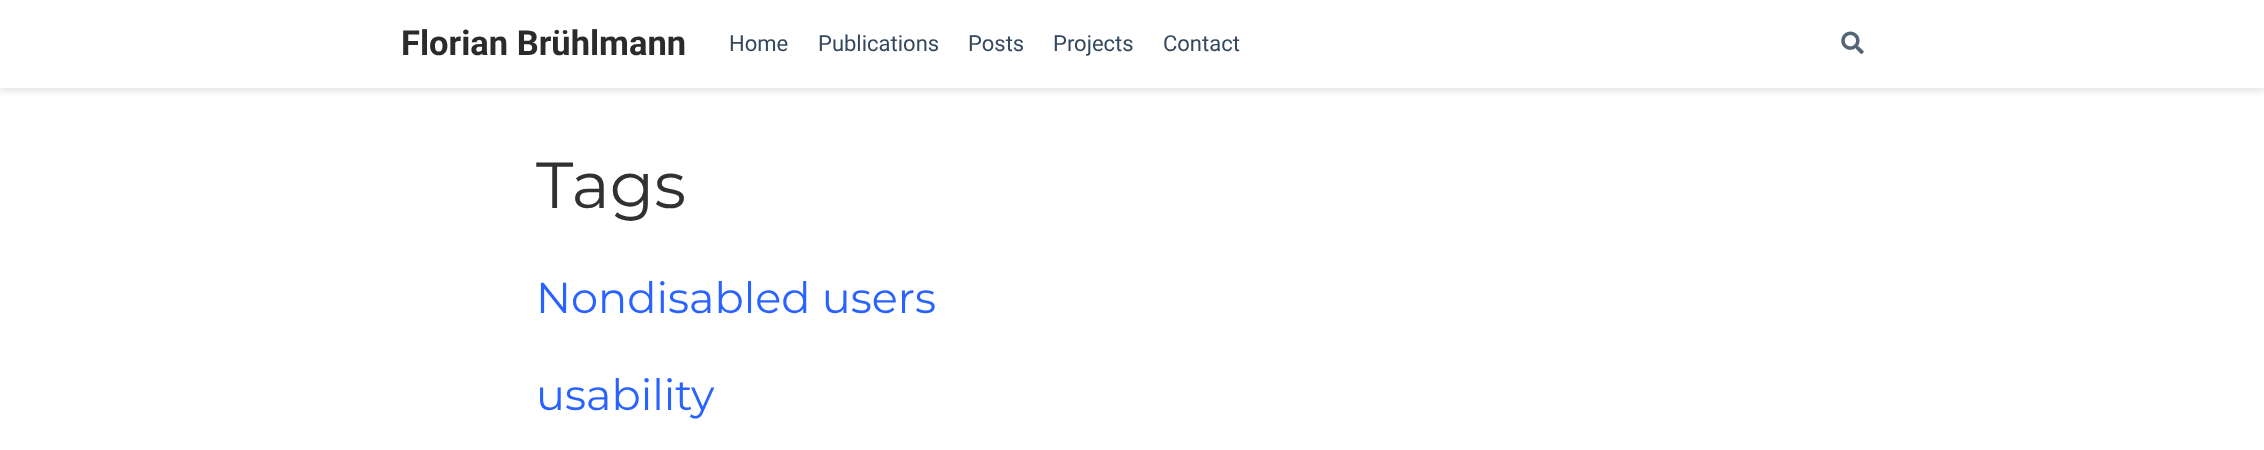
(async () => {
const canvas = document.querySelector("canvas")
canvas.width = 2264
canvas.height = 450
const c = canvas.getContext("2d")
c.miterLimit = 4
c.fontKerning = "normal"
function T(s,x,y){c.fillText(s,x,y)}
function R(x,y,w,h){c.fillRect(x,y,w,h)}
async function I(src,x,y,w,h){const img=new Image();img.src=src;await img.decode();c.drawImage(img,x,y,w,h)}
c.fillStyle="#fff"
R(0,0,2264,450)
c.fillStyle="#0000001c"
c.filter="blur(3.5px)"
c.beginPath()
c.rect(0,4,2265,87)
c.fill()
c.filter="none"
c.fillStyle="#fff"
R(0,0,2264,88)
c.font="bold 34.5px Roboto"
c.fillStyle="#2b2b2b"
T("Florian Brühlmann",401,55)
c.font="22px Roboto"
c.fillStyle="#34495e"
T("Home",729,51)
T("Publications",818,51)
T("Posts",968,51)
T("Projects",1053,51)
T("Contact",1163,51)
await I("1.png",1841,31,23,23)
c.font="65px Montserrat"
c.fillStyle="#313131"
T("Tags",536,208)
c.font="43.1px Montserrat"
c.fillStyle="#2962ff"
T("Nondisabled users",536,313)
T("usability",536,410)
})()
